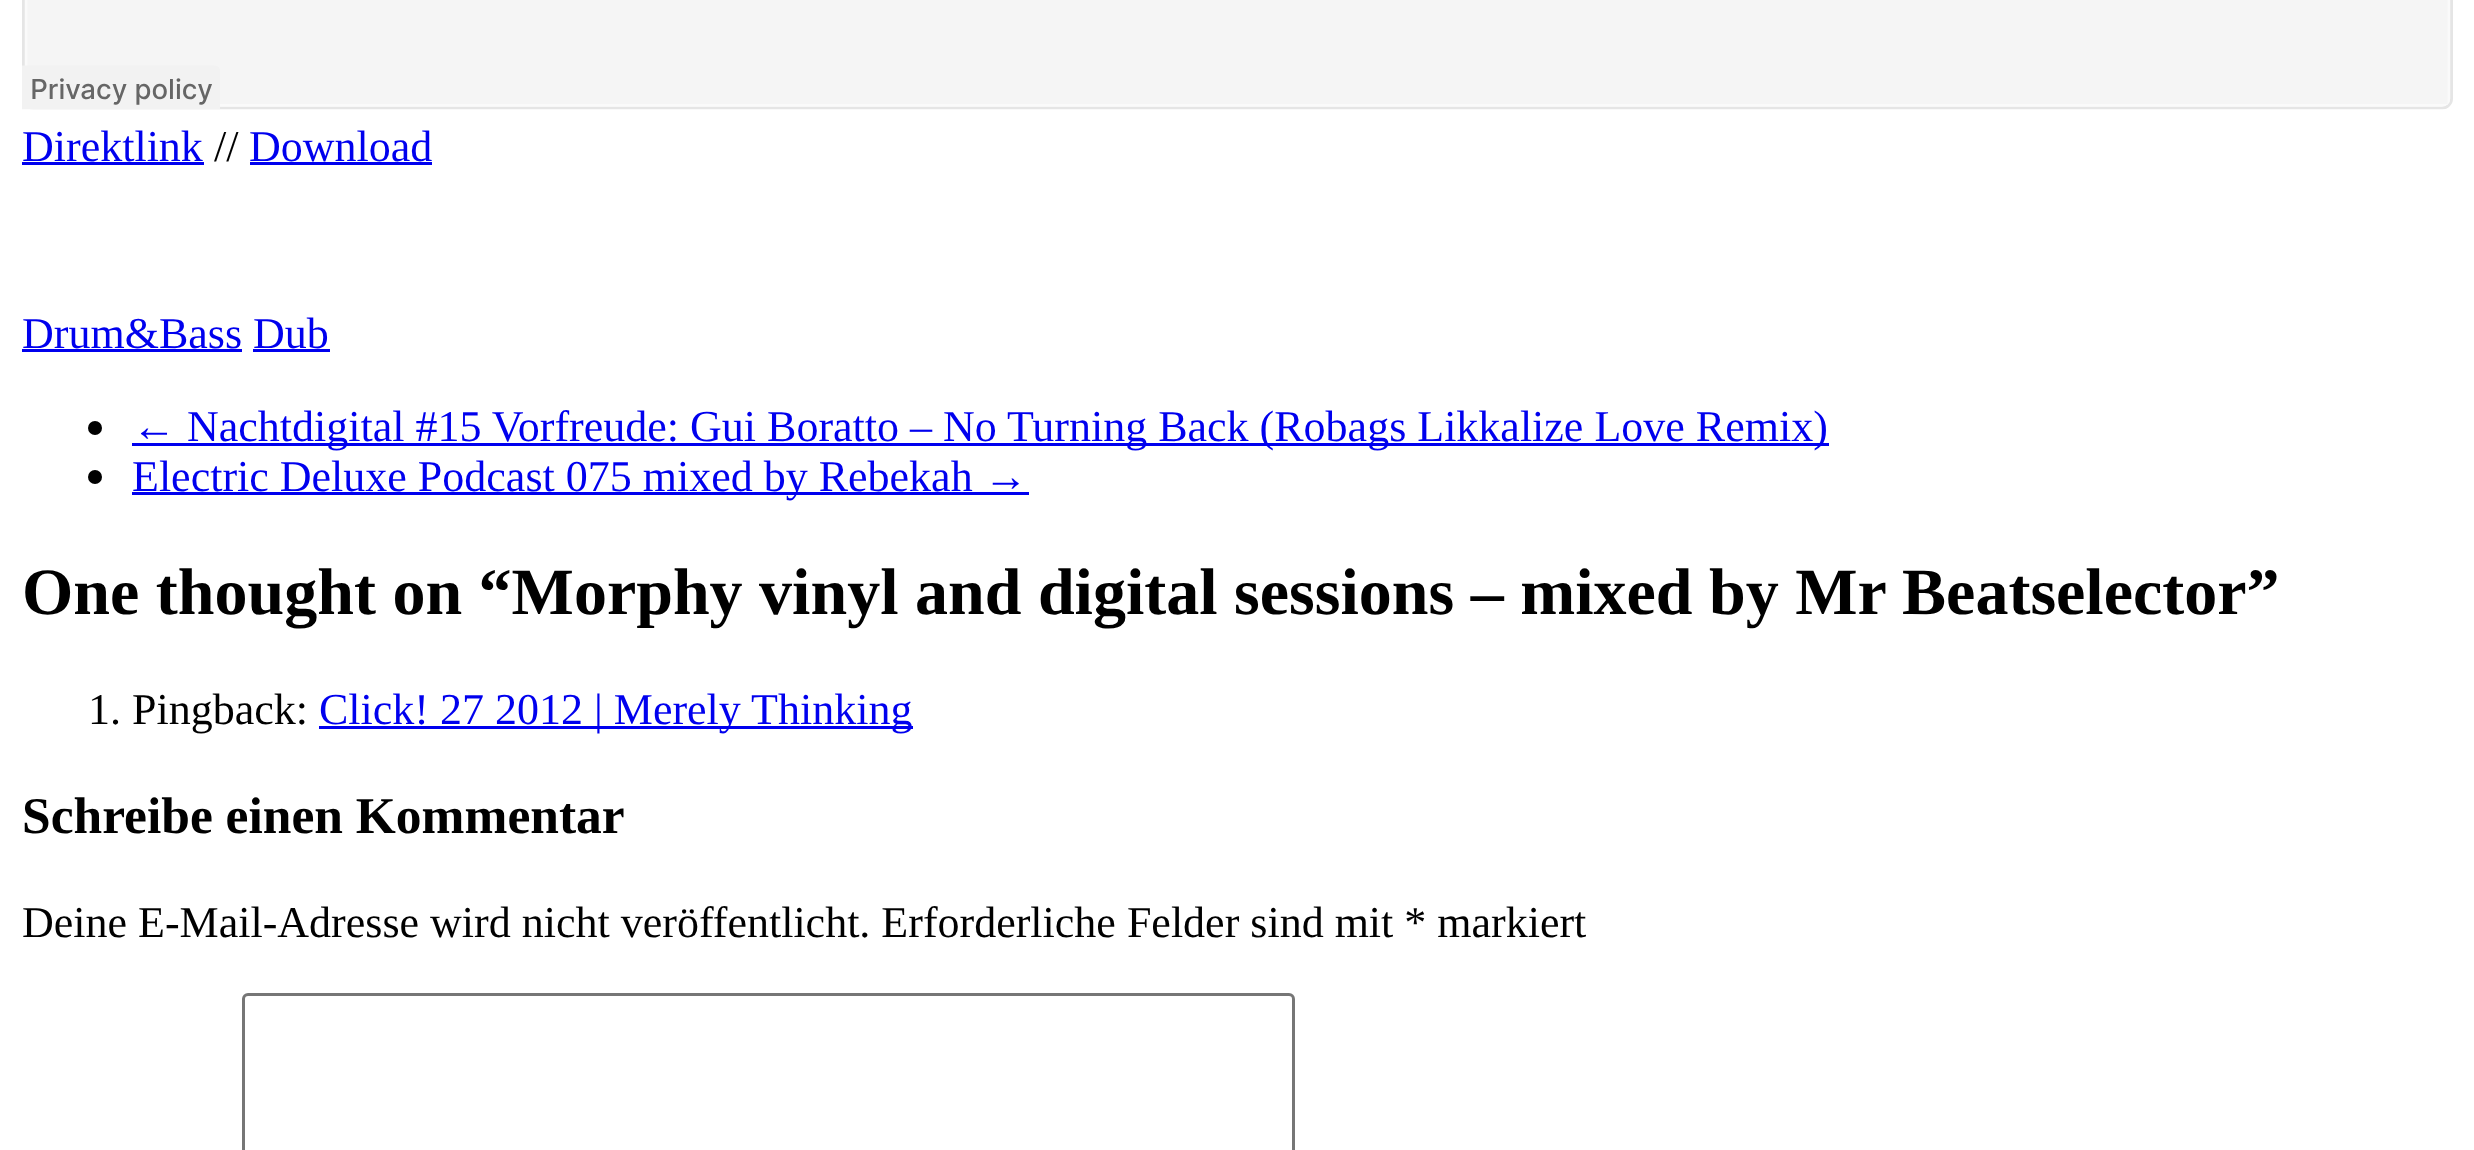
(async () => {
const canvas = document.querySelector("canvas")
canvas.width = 2474
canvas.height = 1150
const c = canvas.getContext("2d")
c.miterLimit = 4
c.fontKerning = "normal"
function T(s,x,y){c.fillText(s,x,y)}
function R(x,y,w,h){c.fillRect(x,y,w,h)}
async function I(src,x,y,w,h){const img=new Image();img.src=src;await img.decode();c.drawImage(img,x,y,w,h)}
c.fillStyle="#fff"
R(0,0,2474,1150)
await I("1.png",22,0,2431,110)
c.font="44px Liberation Serif"
c.fillStyle="#00e"
T("Direktlink",22,161)
R(22,162,182,3)
c.fillStyle="#000"
T("//",214,161)
c.fillStyle="#00e"
T("Download",249,161)
R(250,162,182,3)
T("Drum&Bass Dub",22,348)
R(22,349,220,3)
R(253,349,77,3)
c.fillStyle="#000"
c.beginPath()
c.arc(95,428,7,0,7)
c.fill()
c.fillStyle="#00e"
R(132,443,1697,3)
T("← Nachtdigital #15 Vorfreude: Gui Boratto – No Turning Back (Robags Likkalize Love Remix)",132,441)
c.fillStyle="#000"
c.beginPath()
c.arc(95,477,7,0,7)
c.fill()
c.fillStyle="#00e"
R(132,492,897,3)
T("Electric Deluxe Podcast 075 mixed by Rebekah →",132,491)
c.font="bold 66px Liberation Serif"
c.fillStyle="#000"
T("One thought on “Morphy vinyl and digital sessions – mixed by Mr Beatselector”",22,614)
c.font="44px Liberation Serif"
T("1. Pingback:",88,724)
c.fillStyle="#00e"
R(319,726,594,3)
T("Click! 27 2012 | Merely Thinking",319,724)
c.font="bold 51.5px Liberation Serif"
c.fillStyle="#000"
T("Schreibe einen Kommentar",22,833)
c.font="44px Liberation Serif"
T("Deine E-Mail-Adresse wird nicht veröffentlicht. Erforderliche Felder sind mit * markiert",22,937)
c.beginPath()
c.roundRect(243.5,994.5,1050,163,4.5)
c.strokeStyle="#767676"
c.lineWidth=3
c.stroke()
})()
